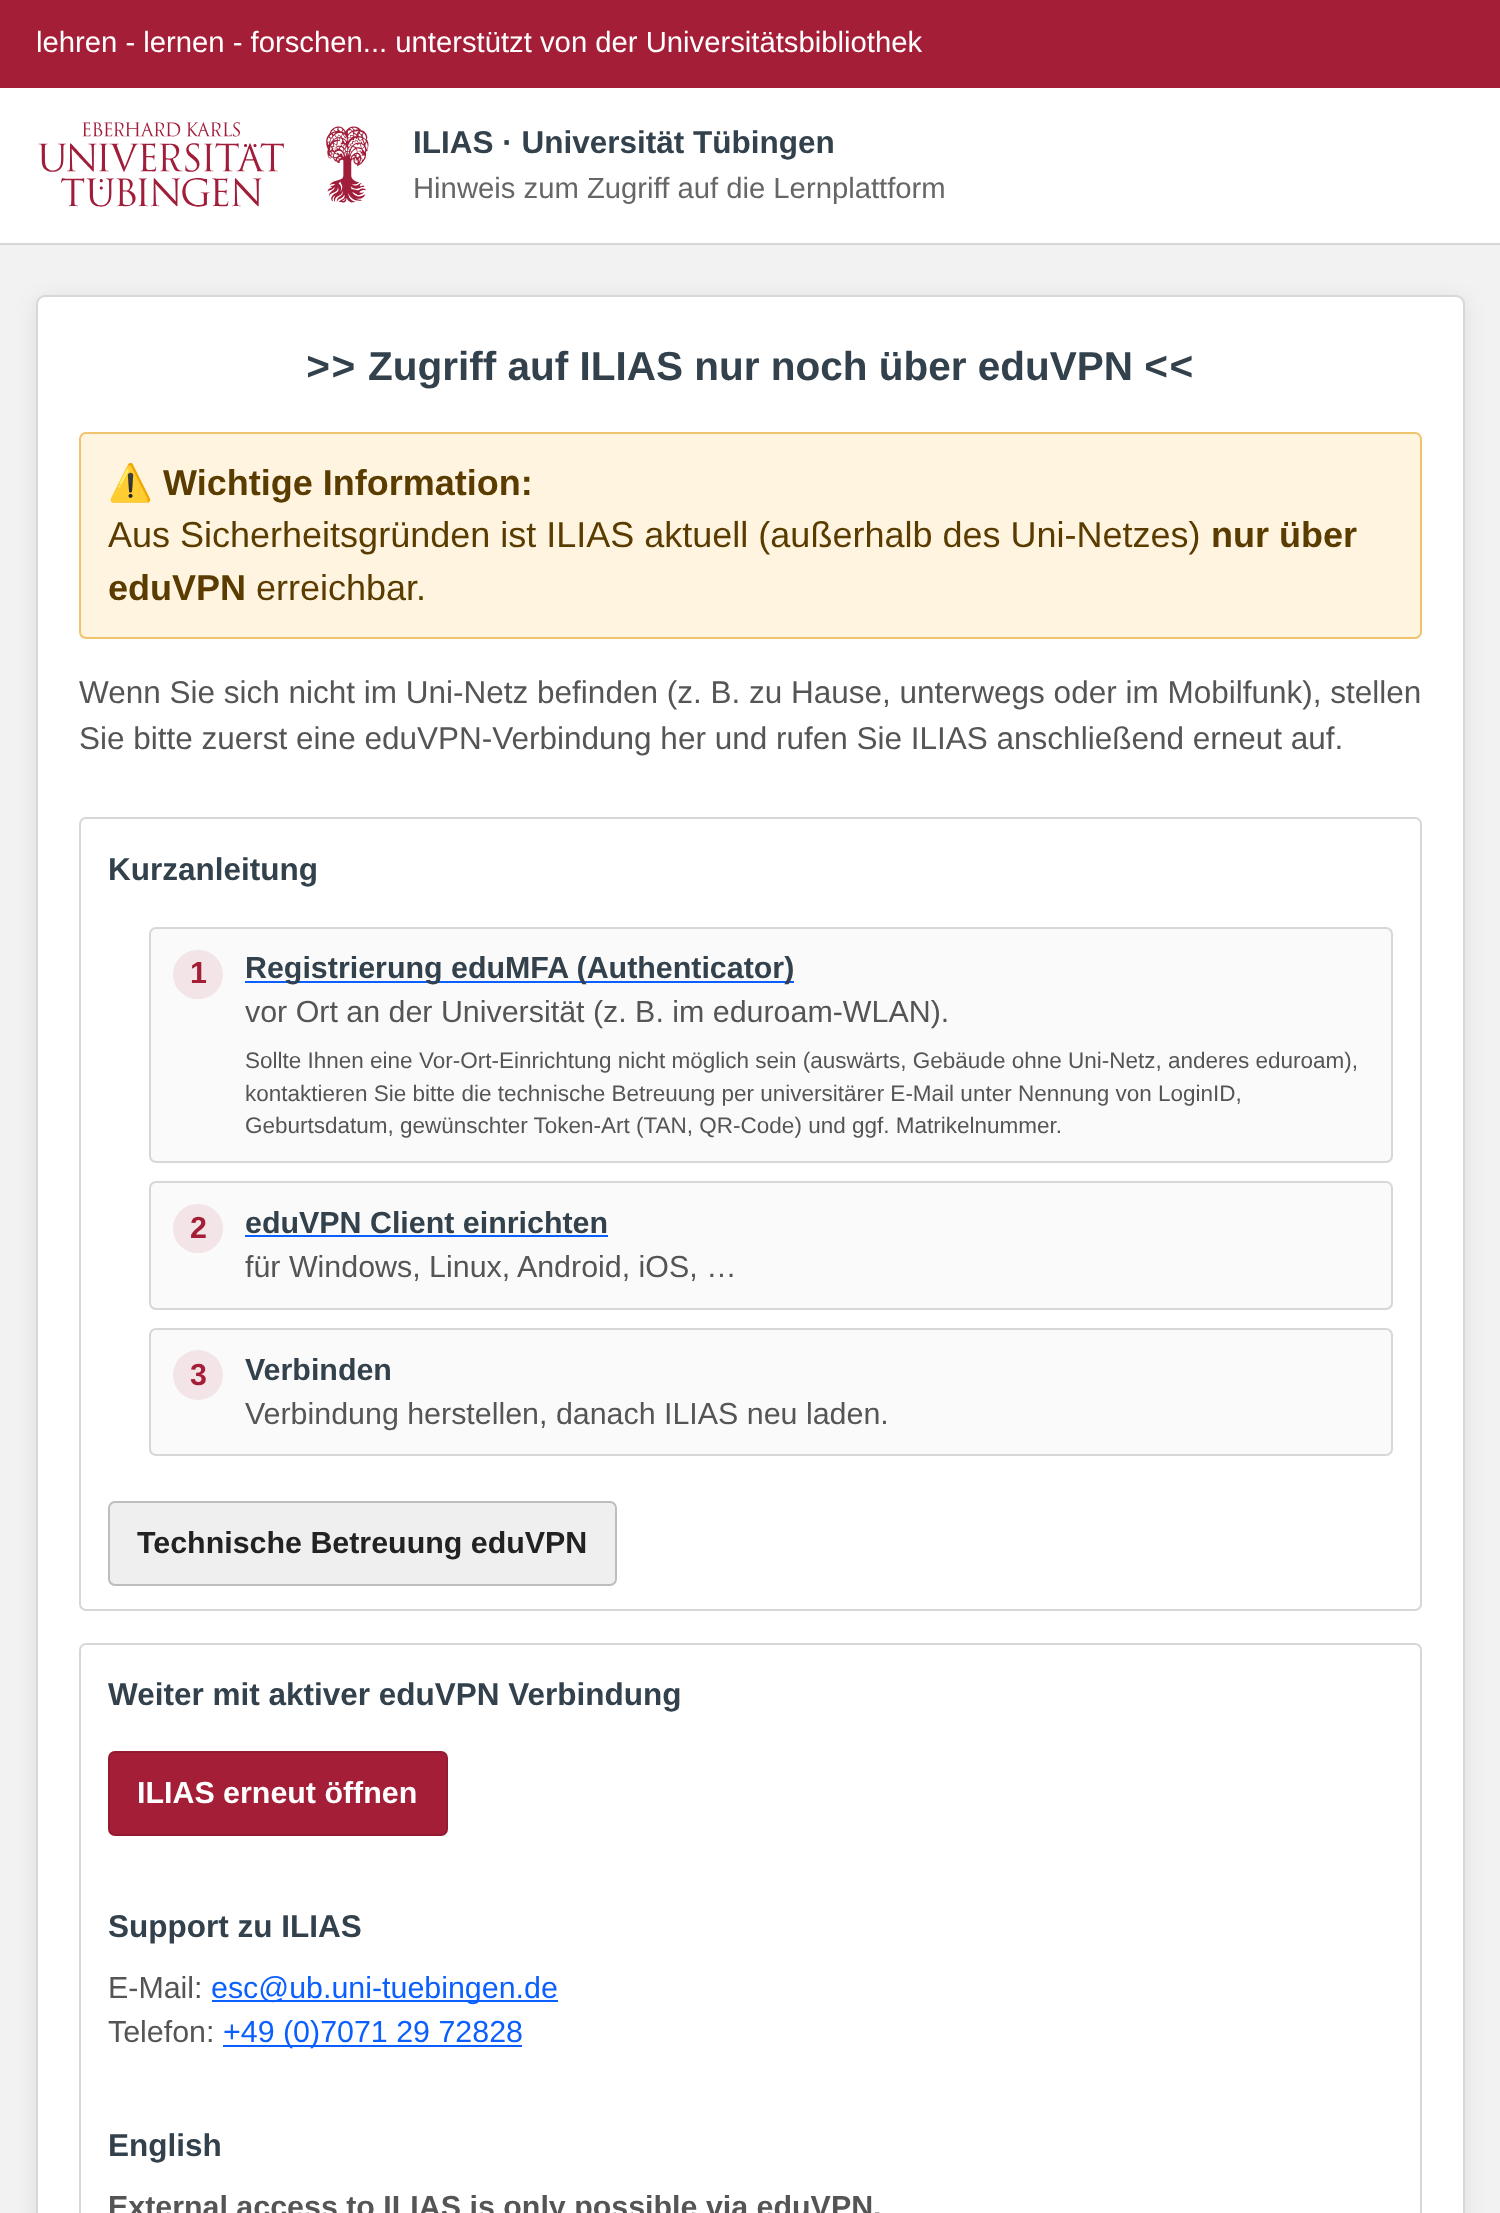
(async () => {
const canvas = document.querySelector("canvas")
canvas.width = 1500
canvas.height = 2213
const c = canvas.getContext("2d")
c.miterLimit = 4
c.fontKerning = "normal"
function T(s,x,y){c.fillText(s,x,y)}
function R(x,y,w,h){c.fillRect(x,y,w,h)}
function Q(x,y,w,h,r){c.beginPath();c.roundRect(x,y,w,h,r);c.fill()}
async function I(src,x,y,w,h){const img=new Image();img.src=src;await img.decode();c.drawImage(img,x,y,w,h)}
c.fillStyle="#f2f2f2"
R(0,0,1500,2213)
c.fillStyle="#a51e37"
R(0,0,1500,88)
c.font="29.25px Liberation Sans"
c.fillStyle="#fff"
T("lehren - lernen - forschen... unterstützt von der Universitätsbibliothek",36,52)
R(0,88,1500,155)
c.fillStyle="#d7d7d7"
R(0,243,1500,2)
await I("1.png",38,122,331,85)
c.font="bold 31.5px Liberation Sans"
c.fillStyle="#32414b"
T("ILIAS · Universität Tübingen",413,153)
c.font="29.25px Liberation Sans"
c.fillStyle="#666"
T("Hinweis zum Zugriff auf die Lernplattform",413,198)
c.fillStyle="#00000014"
c.filter="blur(11px)"
c.beginPath()
c.roundRect(36,299,1429,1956,9)
c.fill()
c.filter="none"
c.fillStyle="#fff"
c.beginPath()
c.roundRect(37,296,1427,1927,8)
c.fill()
c.strokeStyle="#d7d7d7"
c.lineWidth=2
c.stroke()
c.letterSpacing="1px"
c.font="bold 40.5px Liberation Mono"
c.fillStyle="#32414b"
T(">>",306,380)
c.letterSpacing="0px"
c.font="bold 40.5px Liberation Sans"
T("Zugriff auf ILIAS nur noch über eduVPN",368,380)
c.letterSpacing="1px"
c.font="bold 40.5px Liberation Mono"
T("<<",1144,380)
c.fillStyle="#fff4df"
c.beginPath()
c.roundRect(80,433,1341,205,6)
c.fill()
c.strokeStyle="#f0c36d"
c.stroke()
c.letterSpacing="0px"
c.font="bold 36px Noto Color Emoji"
c.fillStyle="#5a3b00"
T("⚠️",108,495)
c.font="bold 36px Liberation Sans"
T("Wichtige Information:",163,495)
c.font="36px Liberation Sans"
T("Aus Sicherheitsgründen ist ILIAS aktuell (außerhalb des Uni-Netzes)",108,547)
c.font="bold 36px Liberation Sans"
T("nur über",1211,547)
T("eduVPN",108,600)
c.font="36px Liberation Sans"
T("erreichbar.",256,600)
c.font="31.5px Liberation Sans"
c.fillStyle="#555"
T("Wenn Sie sich nicht im Uni-Netz befinden (z. B. zu Hause, unterwegs oder im Mobilfunk), stellen",79,703)
T("Sie bitte zuerst eine eduVPN-Verbindung her und rufen Sie ILIAS anschließend erneut auf.",79,749)
c.beginPath()
c.roundRect(80,818,1341,792,6)
c.strokeStyle="#d7d7d7"
c.stroke()
c.font="bold 31.5px Liberation Sans"
c.fillStyle="#32414b"
T("Kurzanleitung",108,880)
c.fillStyle="#fafafa"
c.beginPath()
c.roundRect(150,928,1242,234,6)
c.fill()
c.stroke()
c.fillStyle="#f2e4e7"
Q(173,950,50,49,24.5)
c.font="bold 30.4px Liberation Sans"
c.fillStyle="#a51e37"
T("1",190,983)
c.fillStyle="#0b5fff"
R(245,981,549,2)
c.fillStyle="#32414b"
T("Registrierung eduMFA (Authenticator)",245,978)
c.font="30.4px Liberation Sans"
c.fillStyle="#555"
T("vor Ort an der Universität (z. B. im eduroam-WLAN).",245,1022)
c.font="22.5px Liberation Sans"
T("Sollte Ihnen eine Vor-Ort-Einrichtung nicht möglich sein (auswärts, Gebäude ohne Uni-Netz, anderes eduroam),",245,1068)
T("kontaktieren Sie bitte die technische Betreuung per universitärer E-Mail unter Nennung von LoginID,",245,1101)
T("Geburtsdatum, gewünschter Token-Art (TAN, QR-Code) und ggf. Matrikelnummer.",245,1133)
c.fillStyle="#fafafa"
c.beginPath()
c.roundRect(150,1182,1242,127,6)
c.fill()
c.stroke()
c.fillStyle="#f2e4e7"
Q(173,1204,50,49,24.5)
c.font="bold 30.4px Liberation Sans"
c.fillStyle="#a51e37"
T("2",190,1238)
c.fillStyle="#32414b"
T("eduVPN Client einrichten",245,1233)
c.fillStyle="#0b5fff"
R(245,1235,363,2)
c.font="30.4px Liberation Sans"
c.fillStyle="#555"
T("für Windows, Linux, Android, iOS, …",245,1277)
c.fillStyle="#fafafa"
c.beginPath()
c.roundRect(150,1329,1242,126,6)
c.fill()
c.stroke()
c.fillStyle="#f2e4e7"
c.beginPath()
c.arc(198,1375,25,0,7)
c.fill()
c.font="bold 30.4px Liberation Sans"
c.fillStyle="#a51e37"
T("3",190,1385)
c.fillStyle="#32414b"
T("Verbinden",245,1380)
c.font="30.4px Liberation Sans"
c.fillStyle="#555"
T("Verbindung herstellen, danach ILIAS neu laden.",245,1424)
c.fillStyle="#efefef"
c.beginPath()
c.roundRect(109,1502,507,83,6)
c.fill()
c.strokeStyle="#bdbdbd"
c.stroke()
c.font="bold 30.4px Liberation Sans"
c.fillStyle="#222"
T("Technische Betreuung eduVPN",137,1553)
c.beginPath()
c.roundRect(80,1644,1341,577,6)
c.strokeStyle="#d7d7d7"
c.stroke()
c.font="bold 31.5px Liberation Sans"
c.fillStyle="#32414b"
T("Weiter mit aktiver eduVPN Verbindung",108,1705)
c.fillStyle="#a51e37"
Q(108,1751,340,85,7)
c.beginPath()
c.roundRect(109,1752,338,83,6)
c.strokeStyle="#0000001a"
c.stroke()
c.font="bold 30.4px Liberation Sans"
c.fillStyle="#fff"
T("ILIAS erneut öffnen",137,1803)
c.font="bold 31.5px Liberation Sans"
c.fillStyle="#32414b"
T("Support zu ILIAS",108,1937)
c.font="30.4px Liberation Sans"
c.fillStyle="#555"
T("E-Mail:",108,1998)
c.fillStyle="#0b5fff"
R(212,2000,346,2)
T("esc@ub.uni-tuebingen.de",211,1998)
c.fillStyle="#555"
T("Telefon:",108,2042)
c.fillStyle="#0b5fff"
R(223,2045,299,2)
T("+49 (0)7071 29 72828",223,2042)
c.font="bold 31.5px Liberation Sans"
c.fillStyle="#32414b"
T("English",108,2156)
c.font="bold 30.4px Liberation Sans"
c.fillStyle="#555"
T("External access to ILIAS is only possible via eduVPN.",108,2217)
})()
